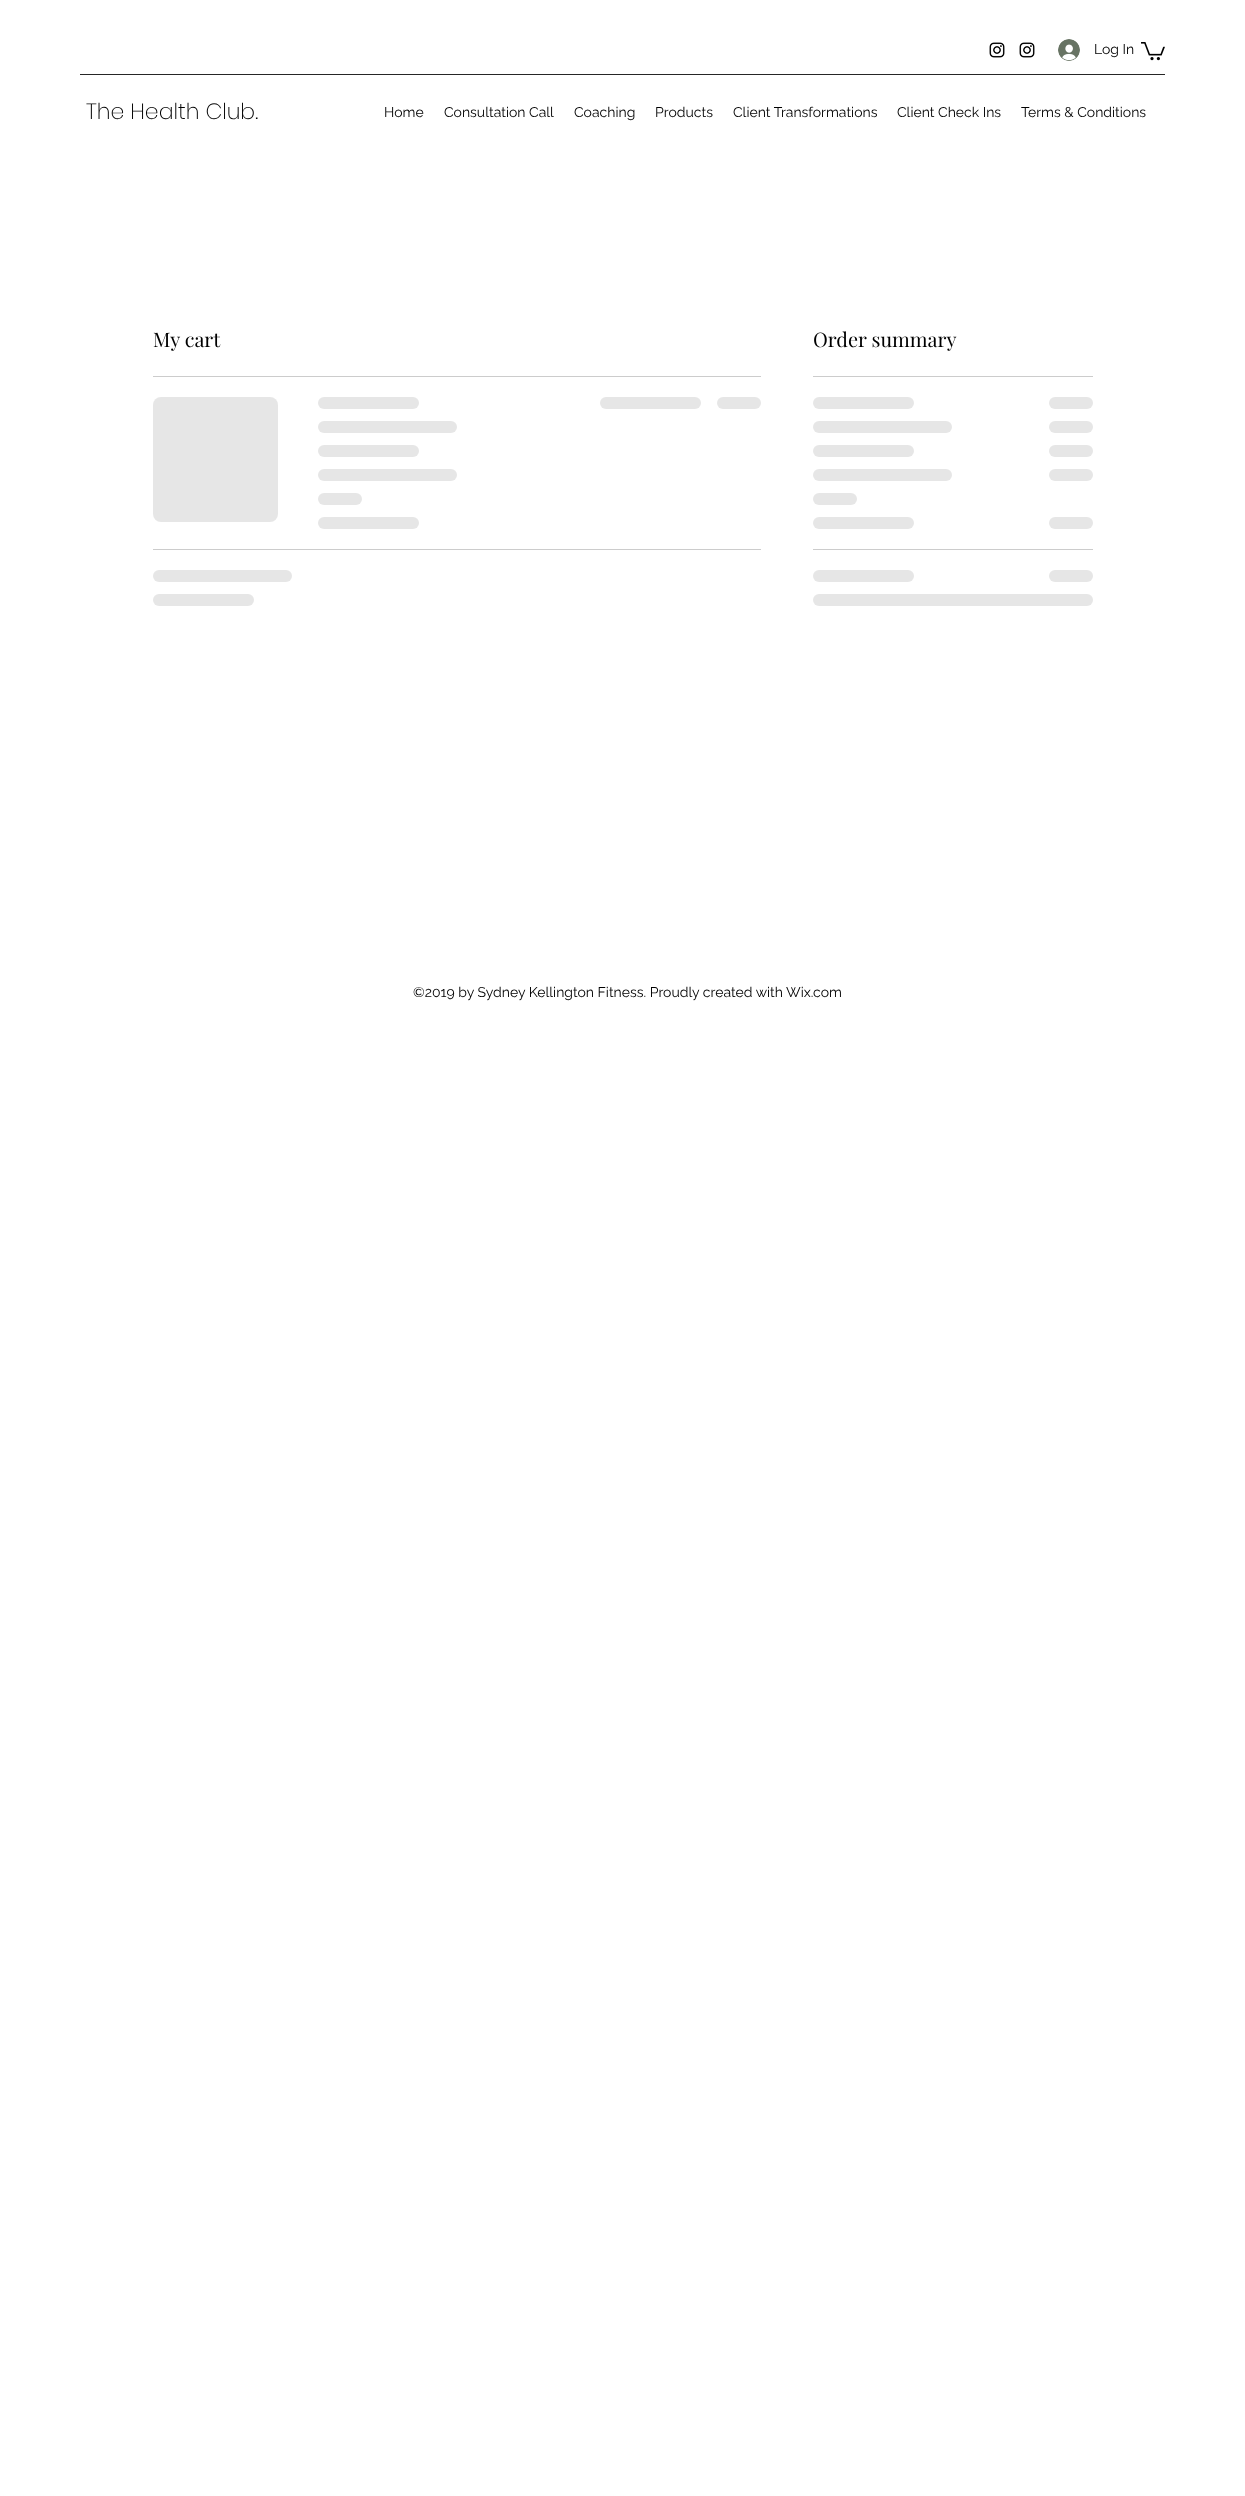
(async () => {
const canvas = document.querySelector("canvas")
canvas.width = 1245
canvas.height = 2496
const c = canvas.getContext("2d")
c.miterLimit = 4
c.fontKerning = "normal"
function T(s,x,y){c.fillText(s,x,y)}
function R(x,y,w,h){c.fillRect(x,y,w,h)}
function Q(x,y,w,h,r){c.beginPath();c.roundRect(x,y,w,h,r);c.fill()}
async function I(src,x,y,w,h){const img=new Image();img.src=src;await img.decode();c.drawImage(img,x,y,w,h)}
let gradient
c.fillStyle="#fff"
R(0,0,1245,2496)
await I("1.png",989,42,16,16)
await I("1.png",1019,42,16,16)
await I("2.png",1058,39,22,22)
c.font="14px Raleway"
c.fillStyle="#000"
T("Log In",1094,54)
await I("3.png",1141,42,24,19)
c.fillStyle="#262626"
R(80,74,1085,1)
c.font="200 22px Poppins"
c.fillStyle="#000"
T("The Health Club.",86,119)
c.font="14px Raleway"
T("Home",384,117)
T("Consultation Call",444,117)
T("Coaching",574,117)
T("Products",655,117)
T("Client Transformations",733,117)
T("Client Check Ins",897,117)
T("Terms & Conditions",1021,117)
c.fillStyle="#ccc"
R(153,376,608,1)
c.font="20px Playfair Display"
c.fillStyle="#000"
T("My cart",153,347)
gradient = c.createLinearGradient(153,460,653,460)
gradient.addColorStop(.25,"#e6e6e6")
gradient.addColorStop(.37,"#ccc")
gradient.addColorStop(.63,"#e6e6e6")
c.fillStyle = gradient
Q(153,397,125,125,8)
gradient = c.createLinearGradient(318,403,722,403)
gradient.addColorStop(.25,"#e6e6e6")
gradient.addColorStop(.37,"#ccc")
gradient.addColorStop(.63,"#e6e6e6")
c.fillStyle = gradient
Q(318,397,101,12,6)
gradient = c.createLinearGradient(318,427,874,427)
gradient.addColorStop(.25,"#e6e6e6")
gradient.addColorStop(.37,"#ccc")
gradient.addColorStop(.63,"#e6e6e6")
c.fillStyle = gradient
Q(318,421,139,12,6)
gradient = c.createLinearGradient(318,451,722,451)
gradient.addColorStop(.25,"#e6e6e6")
gradient.addColorStop(.37,"#ccc")
gradient.addColorStop(.63,"#e6e6e6")
c.fillStyle = gradient
Q(318,445,101,12,6)
gradient = c.createLinearGradient(318,475,874,475)
gradient.addColorStop(.25,"#e6e6e6")
gradient.addColorStop(.37,"#ccc")
gradient.addColorStop(.63,"#e6e6e6")
c.fillStyle = gradient
Q(318,469,139,12,6)
gradient = c.createLinearGradient(318,499,494,499)
gradient.addColorStop(.25,"#e6e6e6")
gradient.addColorStop(.37,"#ccc")
gradient.addColorStop(.63,"#e6e6e6")
c.fillStyle = gradient
Q(318,493,44,12,6)
gradient = c.createLinearGradient(318,523,722,523)
gradient.addColorStop(.25,"#e6e6e6")
gradient.addColorStop(.37,"#ccc")
gradient.addColorStop(.63,"#e6e6e6")
c.fillStyle = gradient
Q(318,517,101,12,6)
gradient = c.createLinearGradient(600,403,1004,403)
gradient.addColorStop(.25,"#e6e6e6")
gradient.addColorStop(.37,"#ccc")
gradient.addColorStop(.63,"#e6e6e6")
c.fillStyle = gradient
Q(600,397,101,12,6)
gradient = c.createLinearGradient(717,403,893,403)
gradient.addColorStop(.25,"#e6e6e6")
gradient.addColorStop(.37,"#ccc")
gradient.addColorStop(.63,"#e6e6e6")
c.fillStyle = gradient
Q(717,397,44,12,6)
c.fillStyle="#ccc"
R(153,549,608,1)
gradient = c.createLinearGradient(153,576,709,576)
gradient.addColorStop(.25,"#e6e6e6")
gradient.addColorStop(.37,"#ccc")
gradient.addColorStop(.63,"#e6e6e6")
c.fillStyle = gradient
Q(153,570,139,12,6)
gradient = c.createLinearGradient(153,600,557,600)
gradient.addColorStop(.25,"#e6e6e6")
gradient.addColorStop(.37,"#ccc")
gradient.addColorStop(.63,"#e6e6e6")
c.fillStyle = gradient
Q(153,594,101,12,6)
c.fillStyle="#ccc"
R(813,376,280,1)
c.fillStyle="#000"
T("Order summary",813,347)
gradient = c.createLinearGradient(813,403,1217,403)
gradient.addColorStop(.25,"#e6e6e6")
gradient.addColorStop(.37,"#ccc")
gradient.addColorStop(.63,"#e6e6e6")
c.fillStyle = gradient
Q(813,397,101,12,6)
gradient = c.createLinearGradient(1049,403,1225,403)
gradient.addColorStop(.25,"#e6e6e6")
gradient.addColorStop(.37,"#ccc")
gradient.addColorStop(.63,"#e6e6e6")
c.fillStyle = gradient
Q(1049,397,44,12,6)
gradient = c.createLinearGradient(813,427,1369,427)
gradient.addColorStop(.25,"#e6e6e6")
gradient.addColorStop(.37,"#ccc")
gradient.addColorStop(.63,"#e6e6e6")
c.fillStyle = gradient
Q(813,421,139,12,6)
gradient = c.createLinearGradient(1049,427,1225,427)
gradient.addColorStop(.25,"#e6e6e6")
gradient.addColorStop(.37,"#ccc")
gradient.addColorStop(.63,"#e6e6e6")
c.fillStyle = gradient
Q(1049,421,44,12,6)
gradient = c.createLinearGradient(813,451,1217,451)
gradient.addColorStop(.25,"#e6e6e6")
gradient.addColorStop(.37,"#ccc")
gradient.addColorStop(.63,"#e6e6e6")
c.fillStyle = gradient
Q(813,445,101,12,6)
gradient = c.createLinearGradient(1049,451,1225,451)
gradient.addColorStop(.25,"#e6e6e6")
gradient.addColorStop(.37,"#ccc")
gradient.addColorStop(.63,"#e6e6e6")
c.fillStyle = gradient
Q(1049,445,44,12,6)
gradient = c.createLinearGradient(813,475,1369,475)
gradient.addColorStop(.25,"#e6e6e6")
gradient.addColorStop(.37,"#ccc")
gradient.addColorStop(.63,"#e6e6e6")
c.fillStyle = gradient
Q(813,469,139,12,6)
gradient = c.createLinearGradient(1049,475,1225,475)
gradient.addColorStop(.25,"#e6e6e6")
gradient.addColorStop(.37,"#ccc")
gradient.addColorStop(.63,"#e6e6e6")
c.fillStyle = gradient
Q(1049,469,44,12,6)
gradient = c.createLinearGradient(813,499,989,499)
gradient.addColorStop(.25,"#e6e6e6")
gradient.addColorStop(.37,"#ccc")
gradient.addColorStop(.63,"#e6e6e6")
c.fillStyle = gradient
Q(813,493,44,12,6)
gradient = c.createLinearGradient(813,523,1217,523)
gradient.addColorStop(.25,"#e6e6e6")
gradient.addColorStop(.37,"#ccc")
gradient.addColorStop(.63,"#e6e6e6")
c.fillStyle = gradient
Q(813,517,101,12,6)
gradient = c.createLinearGradient(1049,523,1225,523)
gradient.addColorStop(.25,"#e6e6e6")
gradient.addColorStop(.37,"#ccc")
gradient.addColorStop(.63,"#e6e6e6")
c.fillStyle = gradient
Q(1049,517,44,12,6)
c.fillStyle="#ccc"
R(813,549,280,1)
gradient = c.createLinearGradient(813,576,1217,576)
gradient.addColorStop(.25,"#e6e6e6")
gradient.addColorStop(.37,"#ccc")
gradient.addColorStop(.63,"#e6e6e6")
c.fillStyle = gradient
Q(813,570,101,12,6)
gradient = c.createLinearGradient(1049,576,1225,576)
gradient.addColorStop(.25,"#e6e6e6")
gradient.addColorStop(.37,"#ccc")
gradient.addColorStop(.63,"#e6e6e6")
c.fillStyle = gradient
Q(1049,570,44,12,6)
gradient = c.createLinearGradient(813,600,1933,600)
gradient.addColorStop(.25,"#e6e6e6")
gradient.addColorStop(.37,"#ccc")
gradient.addColorStop(.63,"#e6e6e6")
c.fillStyle = gradient
Q(813,594,280,12,6)
c.font="14px Raleway"
c.fillStyle="#000"
T("©2019 by Sydney Kellington Fitness. Proudly created with Wix.com",413,997)
})()
